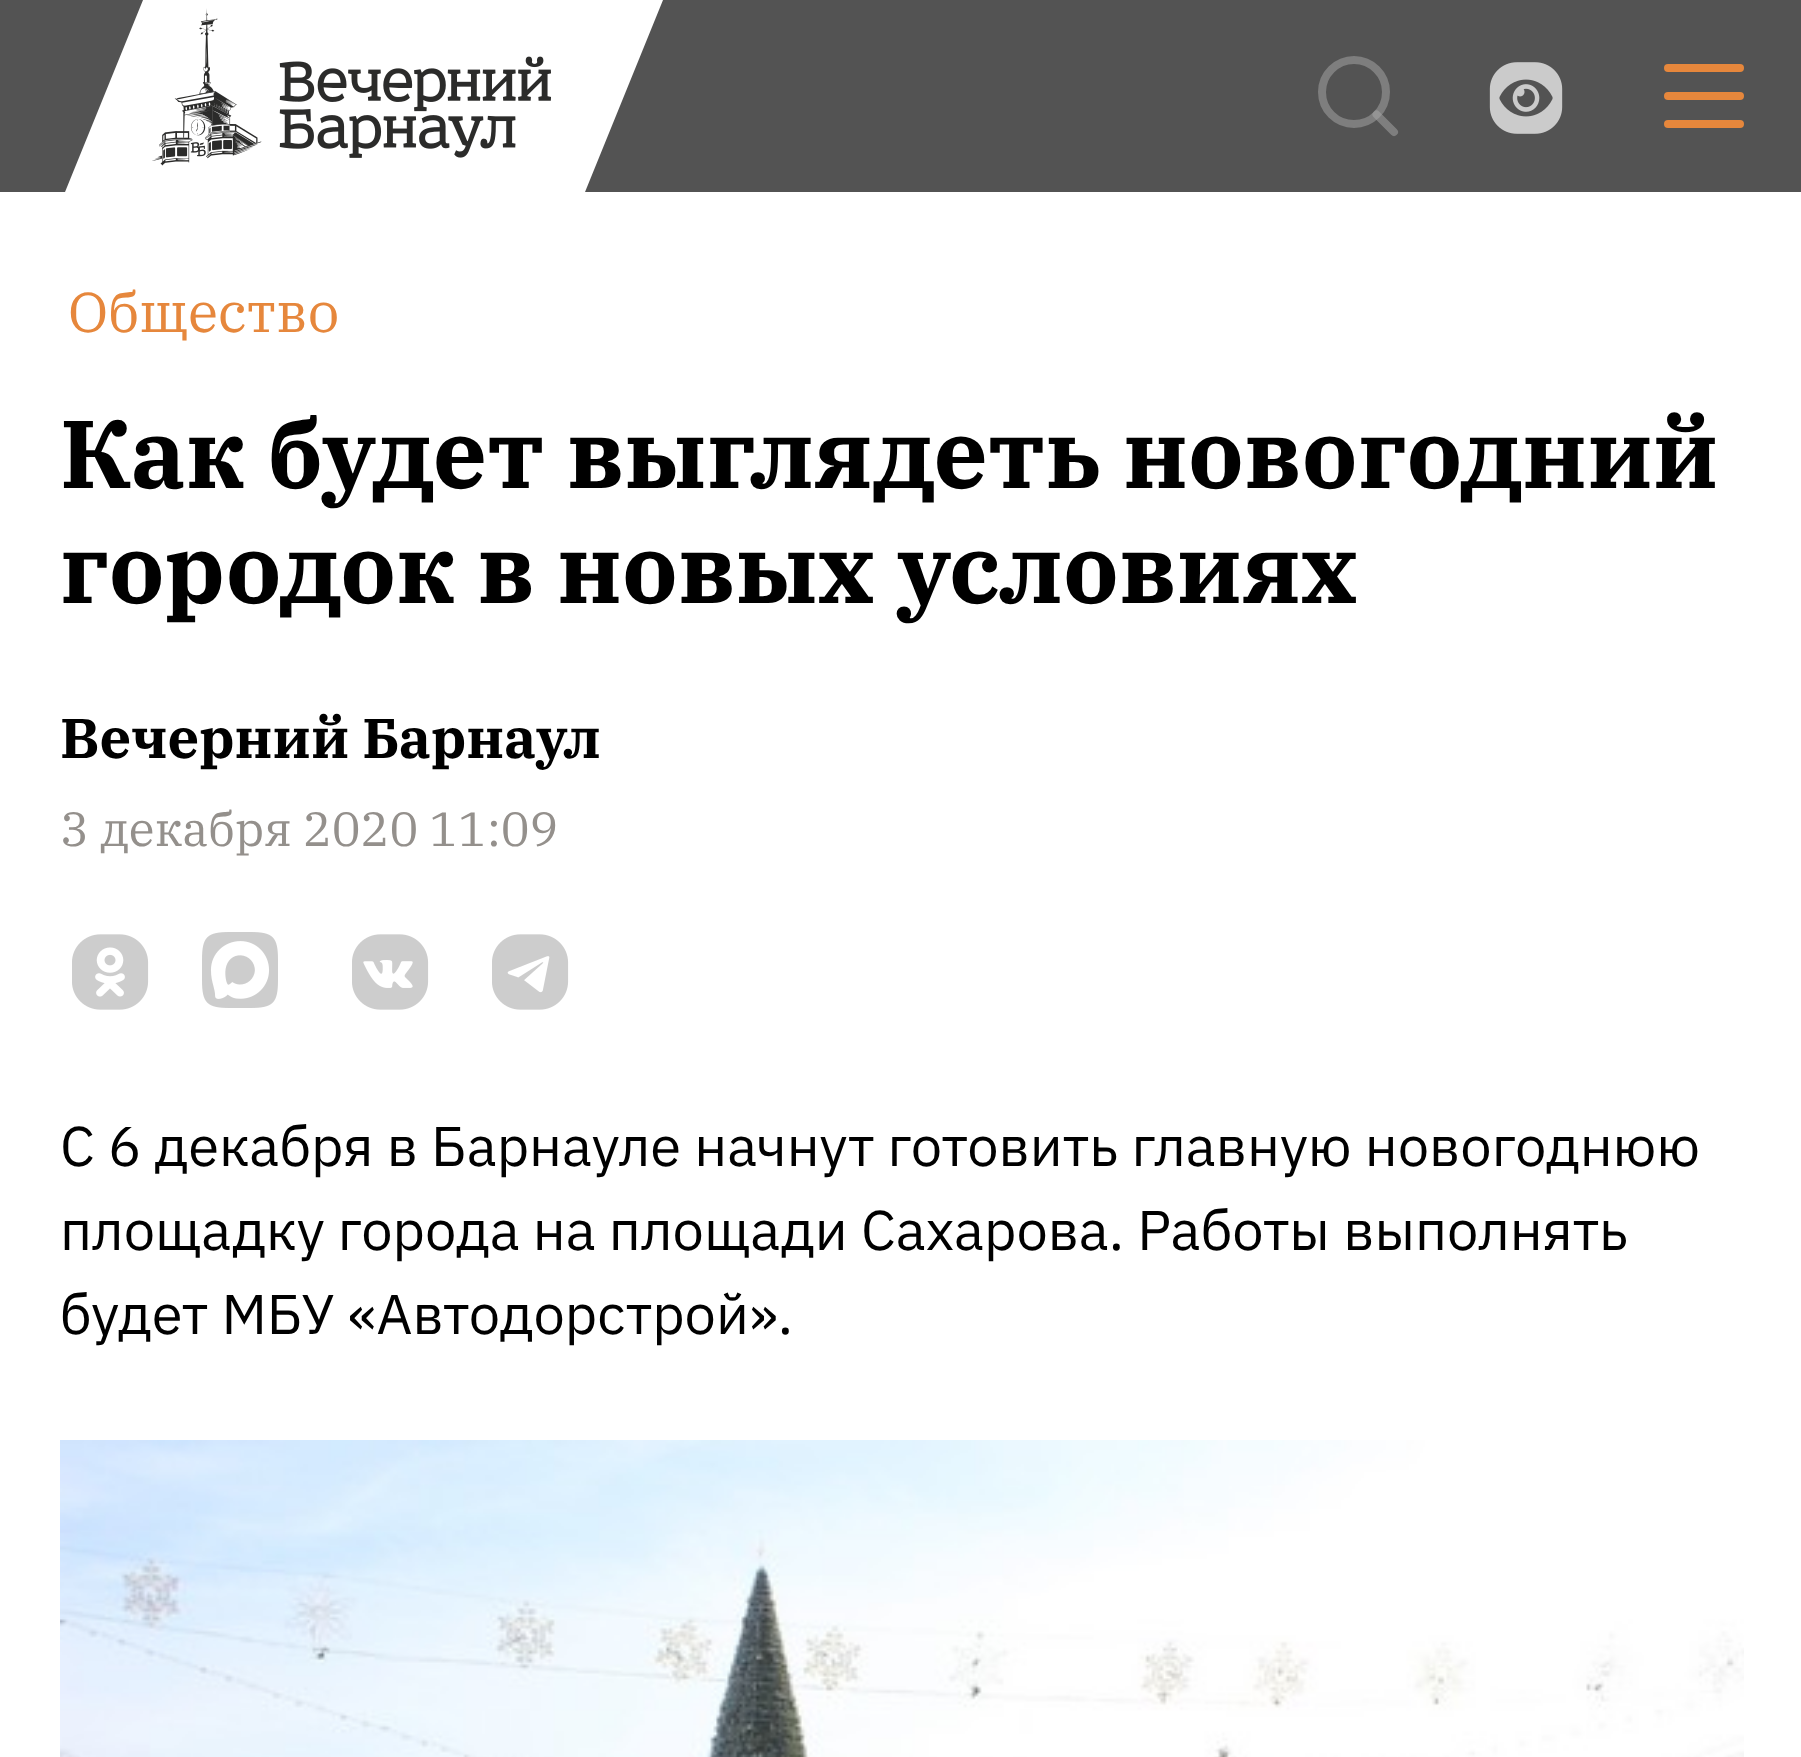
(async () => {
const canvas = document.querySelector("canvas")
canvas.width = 1801
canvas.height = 1757
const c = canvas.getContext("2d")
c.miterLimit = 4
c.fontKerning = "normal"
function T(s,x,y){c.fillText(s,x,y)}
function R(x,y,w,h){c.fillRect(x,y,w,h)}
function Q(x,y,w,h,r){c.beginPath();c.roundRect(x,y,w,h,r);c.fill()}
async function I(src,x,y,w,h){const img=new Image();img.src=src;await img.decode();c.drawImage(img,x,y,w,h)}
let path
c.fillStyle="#fff"
R(0,0,1801,1757)
c.fillStyle="#535353"
R(0,0,1801,192)
c.fillStyle="#fff"
path = new Path2D("M143 0h520l-78 192h-520z")
c.fill(path)
await I("1.png",152,8,399,158)
path = new Path2D("M1354 124c17.5 0 32-14 32-32c0-17.5-14.5-32-32-32c-17.5 0-32 14.5-32 32c0 18 14.5 32 32 32z")
c.strokeStyle="#7e7e7e"
c.lineWidth=8
c.lineCap="round"
c.lineJoin="round"
c.stroke(path)
path = new Path2D("M1394 132l-17.5-17.5")
c.strokeStyle="#a9a9a980"
c.stroke(path)
await I("2.png",1489,62,74,72)
c.fillStyle="#e6873c"
Q(1664,64,80,8,4)
Q(1664,92,80,8,4)
Q(1664,120,80,8,4)
c.font="56px IBM Plex Serif"
T("Общество",68,332)
c.font="bold 96px IBM Plex Serif"
c.fillStyle="#000"
T("Как будет выглядеть новогодний",60,488)
T("городок в новых условиях",60,603)
c.font="bold 56px IBM Plex Serif"
T("Вечерний Барнаул",60,758)
c.font="48px IBM Plex Serif"
c.fillStyle="#94908c"
T("3 декабря 2020 11:09",60,846)
await I("3.png",72,934,77,76)
await I("4.png",202,932,76,76)
await I("5.png",352,934,77,76)
await I("6.png",492,934,77,76)
c.font="56px IBM Plex Sans"
c.fillStyle="#000"
T("С 6 декабря в Барнауле начнут готовить главную новогоднюю",60,1166)
T("площадку города на площади Сахарова. Работы выполнять",60,1250)
T("будет МБУ «Автодорстрой».",60,1334)
await I("7.png",60,1440,1684,317)
})()
